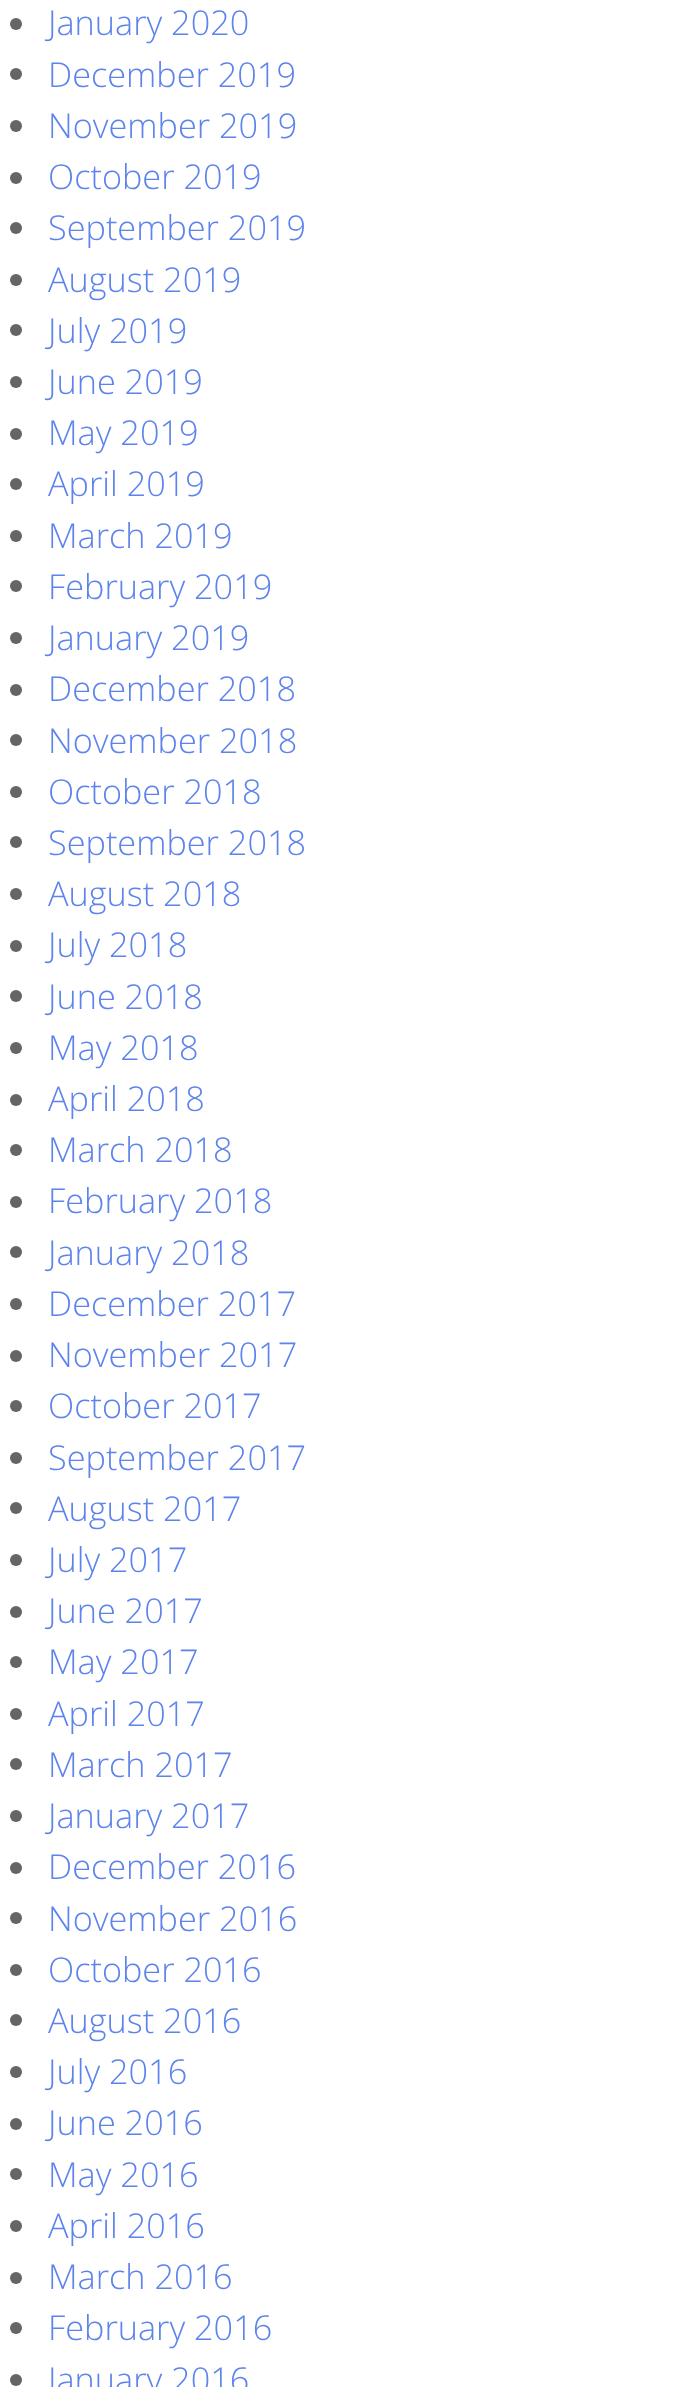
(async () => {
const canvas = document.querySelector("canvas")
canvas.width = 685
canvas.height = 2387
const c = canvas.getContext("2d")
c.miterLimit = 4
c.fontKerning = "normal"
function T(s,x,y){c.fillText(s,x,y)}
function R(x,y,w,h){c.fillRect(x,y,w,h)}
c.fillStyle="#fff"
R(0,0,685,2387)
c.fillStyle="#656565"
c.beginPath()
c.arc(16,24,6,0,7)
c.fill()
c.font="300 34.25px Open Sans"
c.fillStyle="#5d83ec"
T("January 2020",48,35)
c.fillStyle="#656565"
c.beginPath()
c.arc(16,74,6,0,7)
c.fill()
c.fillStyle="#5d83ec"
T("December 2019",48,87)
c.fillStyle="#656565"
c.beginPath()
c.arc(16,126,6,0,7)
c.fill()
c.fillStyle="#5d83ec"
T("November 2019",48,138)
c.fillStyle="#656565"
c.beginPath()
c.arc(16,178,6,0,7)
c.fill()
c.fillStyle="#5d83ec"
T("October 2019",48,189)
c.fillStyle="#656565"
c.beginPath()
c.arc(16,228,6,0,7)
c.fill()
c.fillStyle="#5d83ec"
T("September 2019",48,240)
c.fillStyle="#656565"
c.beginPath()
c.arc(16,280,6,0,7)
c.fill()
c.fillStyle="#5d83ec"
T("August 2019",48,292)
c.fillStyle="#656565"
c.beginPath()
c.arc(16,330,6,0,7)
c.fill()
c.fillStyle="#5d83ec"
T("July 2019",48,343)
c.fillStyle="#656565"
c.beginPath()
c.arc(16,382,6,0,7)
c.fill()
c.fillStyle="#5d83ec"
T("June 2019",48,394)
c.fillStyle="#656565"
c.beginPath()
c.arc(16,434,6,0,7)
c.fill()
c.fillStyle="#5d83ec"
T("May 2019",48,445)
c.fillStyle="#656565"
c.beginPath()
c.arc(16,484,6,0,7)
c.fill()
c.fillStyle="#5d83ec"
T("April 2019",48,496)
c.fillStyle="#656565"
c.beginPath()
c.arc(16,536,6,0,7)
c.fill()
c.fillStyle="#5d83ec"
T("March 2019",48,548)
c.fillStyle="#656565"
c.beginPath()
c.arc(16,586,6,0,7)
c.fill()
c.fillStyle="#5d83ec"
T("February 2019",48,599)
c.fillStyle="#656565"
c.beginPath()
c.arc(16,638,6,0,7)
c.fill()
c.fillStyle="#5d83ec"
T("January 2019",48,650)
c.fillStyle="#656565"
c.beginPath()
c.arc(16,690,6,0,7)
c.fill()
c.fillStyle="#5d83ec"
T("December 2018",48,701)
c.fillStyle="#656565"
c.beginPath()
c.arc(16,740,6,0,7)
c.fill()
c.fillStyle="#5d83ec"
T("November 2018",48,753)
c.fillStyle="#656565"
c.beginPath()
c.arc(16,792,6,0,7)
c.fill()
c.fillStyle="#5d83ec"
T("October 2018",48,804)
c.fillStyle="#656565"
c.beginPath()
c.arc(16,842,6,0,7)
c.fill()
c.fillStyle="#5d83ec"
T("September 2018",48,855)
c.fillStyle="#656565"
c.beginPath()
c.arc(16,894,6,0,7)
c.fill()
c.fillStyle="#5d83ec"
T("August 2018",48,906)
c.fillStyle="#656565"
c.beginPath()
c.arc(16,946,6,0,7)
c.fill()
c.fillStyle="#5d83ec"
T("July 2018",48,957)
c.fillStyle="#656565"
c.beginPath()
c.arc(16,996,6,0,7)
c.fill()
c.fillStyle="#5d83ec"
T("June 2018",48,1009)
c.fillStyle="#656565"
c.beginPath()
c.arc(16,1048,6,0,7)
c.fill()
c.fillStyle="#5d83ec"
T("May 2018",48,1060)
c.fillStyle="#656565"
c.beginPath()
c.arc(16,1100,6,0,7)
c.fill()
c.fillStyle="#5d83ec"
T("April 2018",48,1111)
c.fillStyle="#656565"
c.beginPath()
c.arc(16,1150,6,0,7)
c.fill()
c.fillStyle="#5d83ec"
T("March 2018",48,1162)
c.fillStyle="#656565"
c.beginPath()
c.arc(16,1202,6,0,7)
c.fill()
c.fillStyle="#5d83ec"
T("February 2018",48,1213)
c.fillStyle="#656565"
c.beginPath()
c.arc(16,1252,6,0,7)
c.fill()
c.fillStyle="#5d83ec"
T("January 2018",48,1265)
c.fillStyle="#656565"
c.beginPath()
c.arc(16,1304,6,0,7)
c.fill()
c.fillStyle="#5d83ec"
T("December 2017",48,1316)
c.fillStyle="#656565"
c.beginPath()
c.arc(16,1356,6,0,7)
c.fill()
c.fillStyle="#5d83ec"
T("November 2017",48,1367)
c.fillStyle="#656565"
c.beginPath()
c.arc(16,1406,6,0,7)
c.fill()
c.fillStyle="#5d83ec"
T("October 2017",48,1418)
c.fillStyle="#656565"
c.beginPath()
c.arc(16,1458,6,0,7)
c.fill()
c.fillStyle="#5d83ec"
T("September 2017",48,1470)
c.fillStyle="#656565"
c.beginPath()
c.arc(16,1508,6,0,7)
c.fill()
c.fillStyle="#5d83ec"
T("August 2017",48,1521)
c.fillStyle="#656565"
c.beginPath()
c.arc(16,1560,6,0,7)
c.fill()
c.fillStyle="#5d83ec"
T("July 2017",48,1572)
c.fillStyle="#656565"
c.beginPath()
c.arc(16,1612,6,0,7)
c.fill()
c.fillStyle="#5d83ec"
T("June 2017",48,1623)
c.fillStyle="#656565"
c.beginPath()
c.arc(16,1662,6,0,7)
c.fill()
c.fillStyle="#5d83ec"
T("May 2017",48,1674)
c.fillStyle="#656565"
c.beginPath()
c.arc(16,1714,6,0,7)
c.fill()
c.fillStyle="#5d83ec"
T("April 2017",48,1726)
c.fillStyle="#656565"
c.beginPath()
c.arc(16,1764,6,0,7)
c.fill()
c.fillStyle="#5d83ec"
T("March 2017",48,1777)
c.fillStyle="#656565"
c.beginPath()
c.arc(16,1816,6,0,7)
c.fill()
c.fillStyle="#5d83ec"
T("January 2017",48,1828)
c.fillStyle="#656565"
c.beginPath()
c.arc(16,1868,6,0,7)
c.fill()
c.fillStyle="#5d83ec"
T("December 2016",48,1879)
c.fillStyle="#656565"
c.beginPath()
c.arc(16,1918,6,0,7)
c.fill()
c.fillStyle="#5d83ec"
T("November 2016",48,1931)
c.fillStyle="#656565"
c.beginPath()
c.arc(16,1970,6,0,7)
c.fill()
c.fillStyle="#5d83ec"
T("October 2016",48,1982)
c.fillStyle="#656565"
c.beginPath()
c.arc(16,2020,6,0,7)
c.fill()
c.fillStyle="#5d83ec"
T("August 2016",48,2033)
c.fillStyle="#656565"
c.beginPath()
c.arc(16,2072,6,0,7)
c.fill()
c.fillStyle="#5d83ec"
T("July 2016",48,2084)
c.fillStyle="#656565"
c.beginPath()
c.arc(16,2124,6,0,7)
c.fill()
c.fillStyle="#5d83ec"
T("June 2016",48,2135)
c.fillStyle="#656565"
c.beginPath()
c.arc(16,2174,6,0,7)
c.fill()
c.fillStyle="#5d83ec"
T("May 2016",48,2187)
c.fillStyle="#656565"
c.beginPath()
c.arc(16,2226,6,0,7)
c.fill()
c.fillStyle="#5d83ec"
T("April 2016",48,2238)
c.fillStyle="#656565"
c.beginPath()
c.arc(16,2278,6,0,7)
c.fill()
c.fillStyle="#5d83ec"
T("March 2016",48,2289)
c.fillStyle="#656565"
c.beginPath()
c.arc(16,2328,6,0,7)
c.fill()
c.fillStyle="#5d83ec"
T("February 2016",48,2340)
c.fillStyle="#656565"
c.beginPath()
c.arc(16,2380,6,0,7)
c.fill()
c.fillStyle="#5d83ec"
T("January 2016",48,2392)
})()
